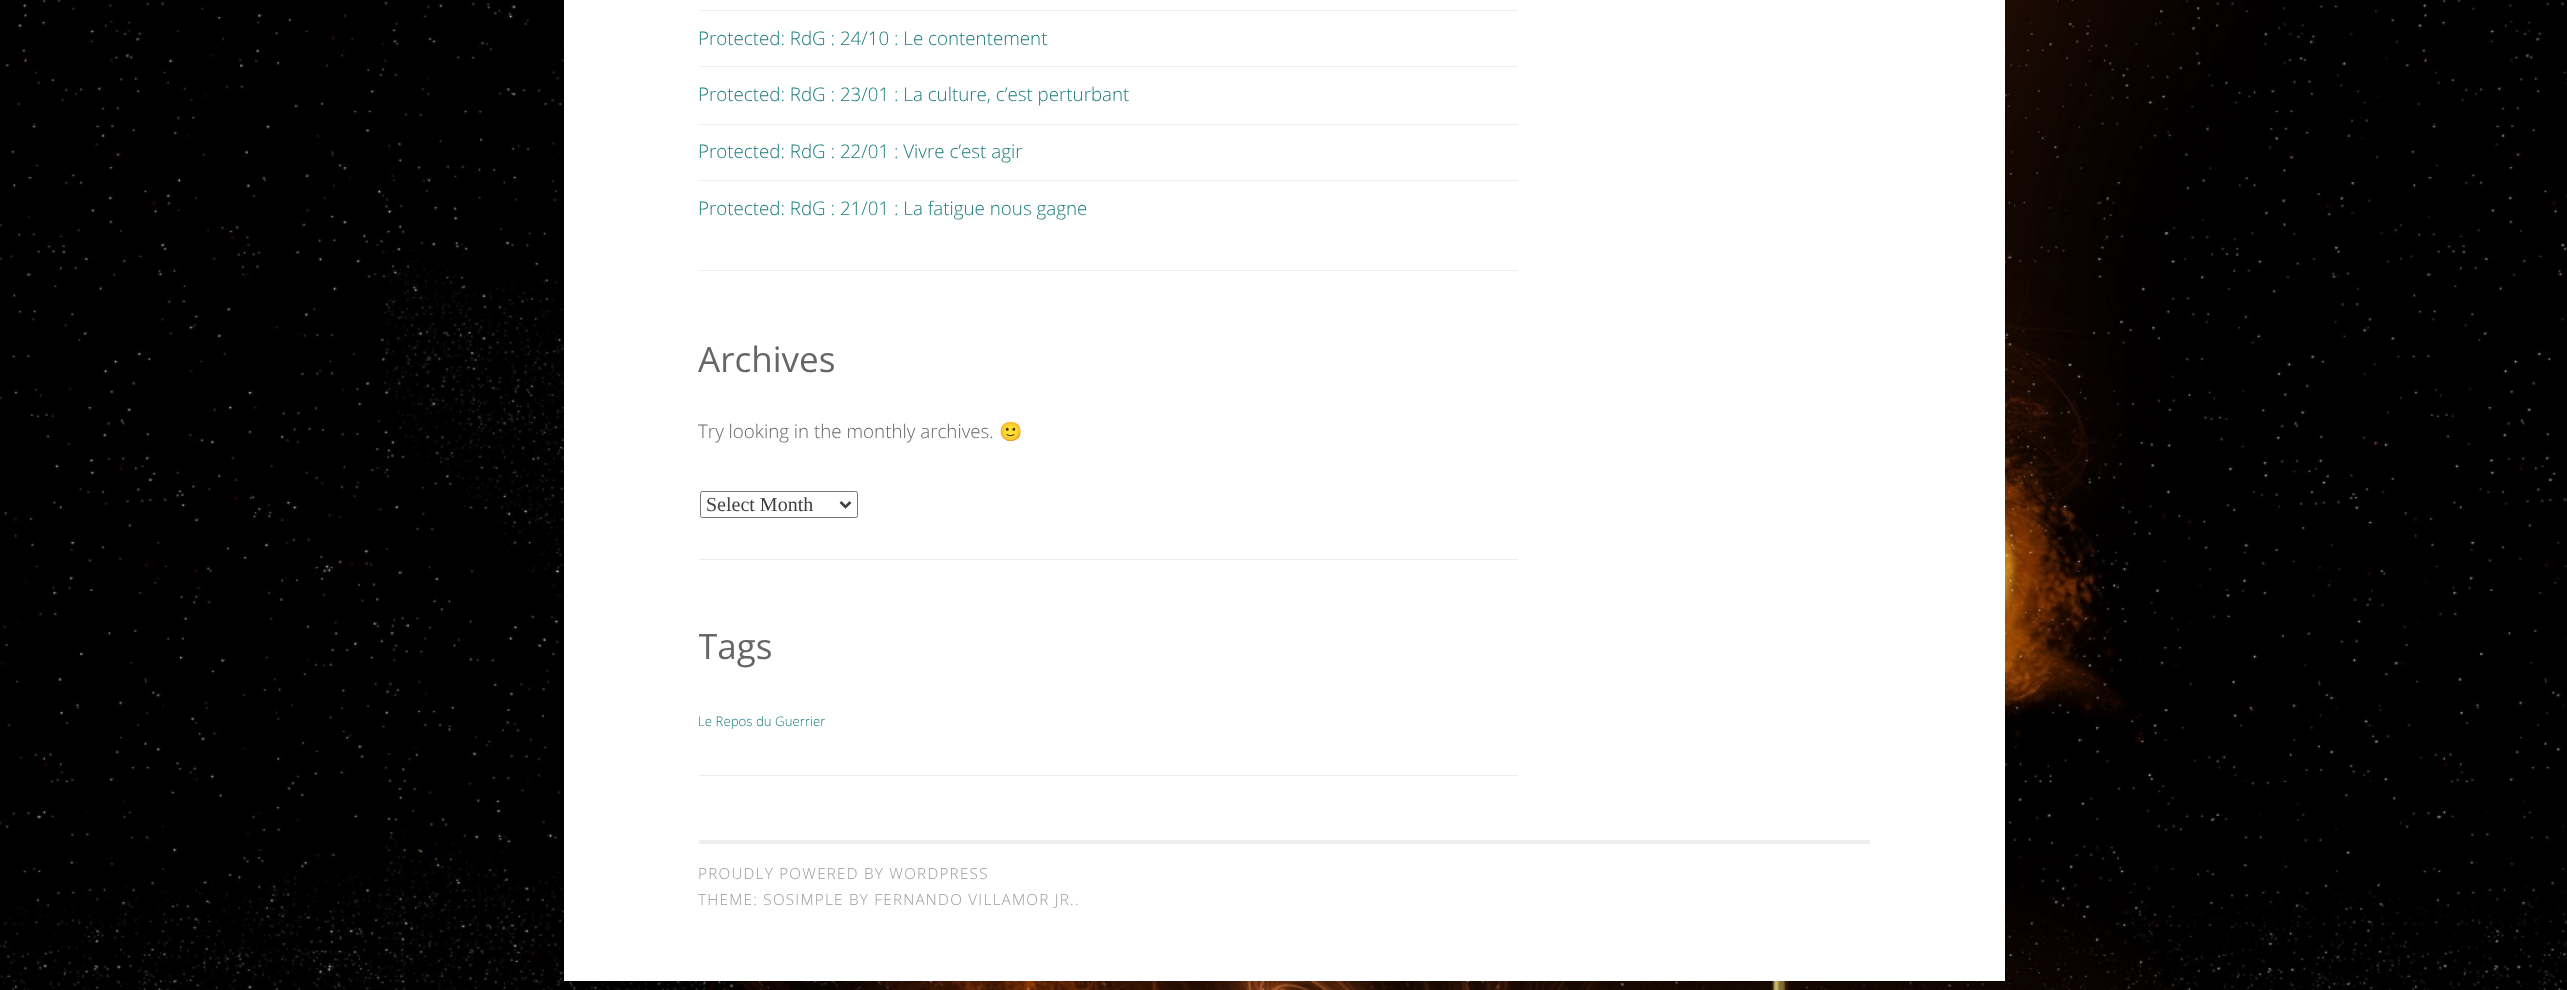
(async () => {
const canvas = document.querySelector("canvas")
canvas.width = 2567
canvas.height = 990
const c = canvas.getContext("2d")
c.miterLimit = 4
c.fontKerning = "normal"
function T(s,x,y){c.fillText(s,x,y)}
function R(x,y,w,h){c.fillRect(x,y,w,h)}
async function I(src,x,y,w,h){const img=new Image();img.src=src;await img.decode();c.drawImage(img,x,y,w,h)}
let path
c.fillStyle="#fff"
R(0,0,2567,990)
await I("1.png",0,0,2567,990)
R(564,0,1441,981)
c.fillStyle="#eee"
R(699,270,819,1)
R(699,10,819,1)
c.font="300 18.75px Open Sans"
c.fillStyle="#1c7c7c"
T("Protected: RdG : 24/10 : Le contentement",698,45)
c.fillStyle="#eee"
R(699,66,819,1)
c.fillStyle="#1c7c7c"
T("Protected: RdG : 23/01 : La culture, c’est perturbant",698,101)
c.fillStyle="#eee"
R(699,124,819,1)
c.fillStyle="#1c7c7c"
T("Protected: RdG : 22/01 : Vivre c’est agir",698,158)
c.fillStyle="#eee"
R(699,180,819,1)
c.fillStyle="#1c7c7c"
T("Protected: RdG : 21/01 : La fatigue nous gagne",698,215)
c.fillStyle="#eee"
R(699,559,819,1)
c.font="35px Open Sans"
c.fillStyle="#666"
T("Archives",698,372)
c.font="300 18.75px Open Sans"
T("Try looking in the monthly archives.",698,438)
c.font="18.75px Noto Color Emoji"
T("🙂",999,438)
c.beginPath()
c.roundRect(700.5,491.5,157,26,2)
c.strokeStyle="#767676"
c.stroke()
path = new Path2D("M840.5 502l5 5l5-5")
c.strokeStyle="#404040"
c.lineWidth=2.5
c.stroke(path)
c.font="20px Liberation Serif"
c.fillStyle="#404040"
T("Select Month",706,511)
c.fillStyle="#eee"
R(699,775,819,1)
c.save()
c.beginPath()
c.rect(699,594,819,181)
c.clip()
c.font="35px Open Sans"
c.fillStyle="#666"
T("Tags",698,659)
c.restore()
c.font="300 13.25px Open Sans"
c.fillStyle="#1c7c7c"
T("Le Repos du Guerrier",698,726)
c.fillStyle="#eee"
R(699,840,1171,4)
c.letterSpacing="1.25px"
c.font="300 15.25px Open Sans"
c.fillStyle="#999"
T("PROUDLY POWERED BY WORDPRESS",698,879)
T("THEME: SOSIMPLE BY FERNANDO VILLAMOR JR..",698,905)
})()
